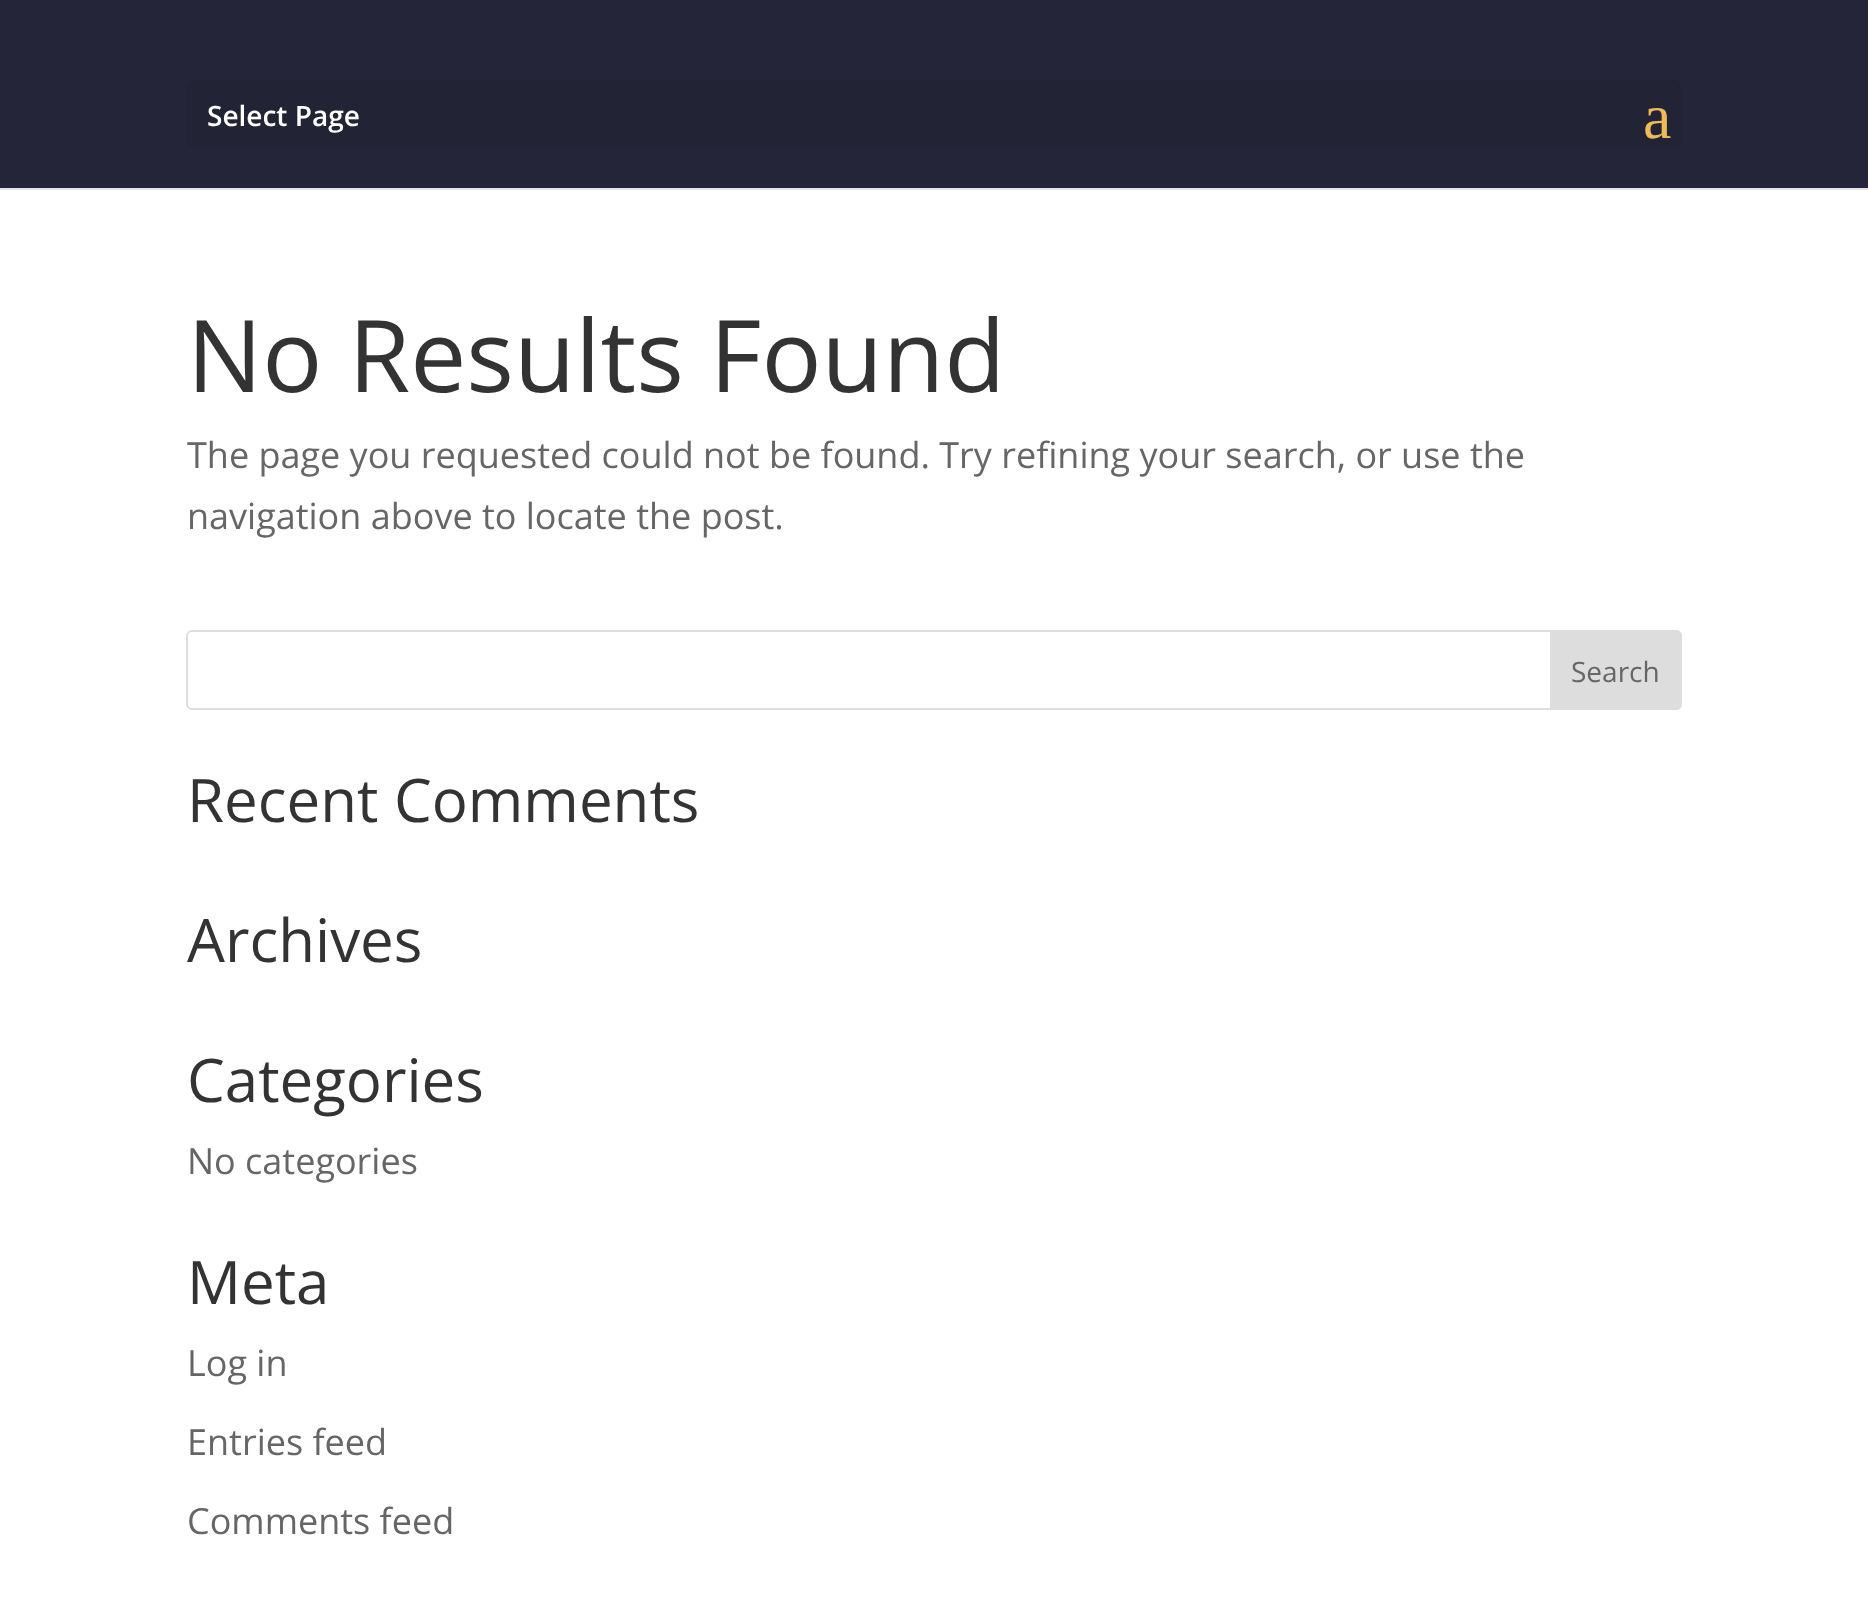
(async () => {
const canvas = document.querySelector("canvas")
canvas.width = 1868
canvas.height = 1599
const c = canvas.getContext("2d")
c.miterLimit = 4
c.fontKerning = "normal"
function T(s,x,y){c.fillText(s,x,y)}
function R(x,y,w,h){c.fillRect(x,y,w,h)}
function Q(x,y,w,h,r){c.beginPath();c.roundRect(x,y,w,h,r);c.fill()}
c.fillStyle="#fff"
R(0,0,1868,1599)
c.fillStyle="#e6e6e6"
R(0,188,1868,2)
c.fillStyle="#242538"
R(0,0,1868,188)
c.fillStyle="#222335"
Q(186,80,1496,68,10)
c.font="600 28px Open Sans"
c.fillStyle="#fff"
T("Select Page",207,126)
c.font="64px Liberation Serif"
c.fillStyle="#edbb57"
T("a",1643,138)
c.font="100px Open Sans"
c.fillStyle="#333"
T("No Results Found",187,392)
c.font="36px Open Sans"
c.fillStyle="#666"
T("The page you requested could not be found. Try refining your search, or use the",187,468)
T("navigation above to locate the post.",187,529)
c.beginPath()
c.roundRect(187,631,1494,78,5)
c.strokeStyle="#ddd"
c.lineWidth=2
c.stroke()
c.fillStyle="#ddd"
c.beginPath()
c.roundRect(1551,631,130,78,[0,5,5,0])
c.fill()
c.stroke()
c.font="28px Open Sans"
c.fillStyle="#666"
T("Search",1571,682)
c.font="60px Open Sans"
c.fillStyle="#333"
T("Recent Comments",187,822)
T("Archives",187,962)
T("Categories",187,1102)
c.font="36px Open Sans"
c.fillStyle="#666"
T("No categories",187,1174)
c.font="60px Open Sans"
c.fillStyle="#333"
T("Meta",187,1304)
c.font="36px Open Sans"
c.fillStyle="#666"
T("Log in",187,1376)
T("Entries feed",187,1455)
T("Comments feed",187,1534)
})()
